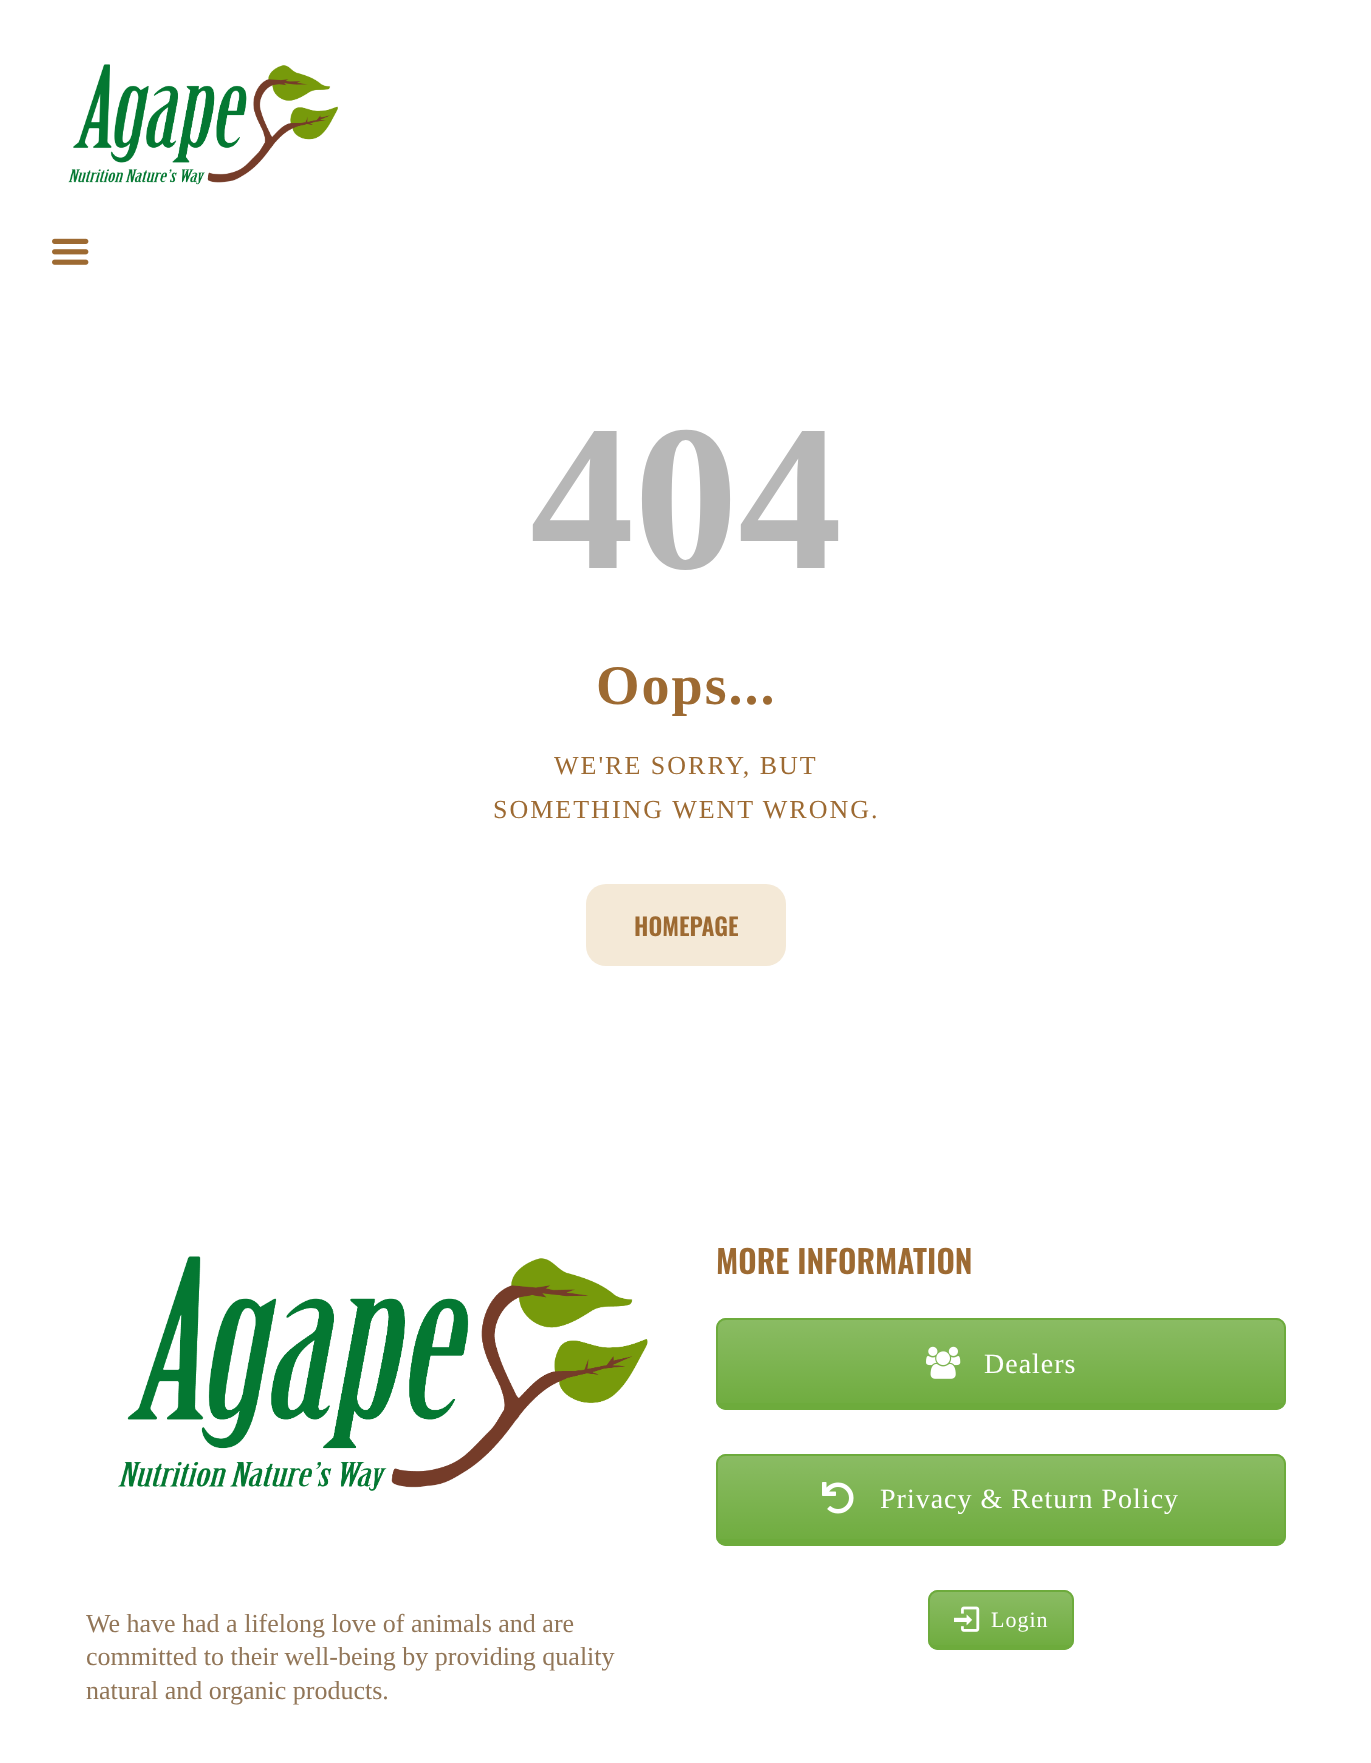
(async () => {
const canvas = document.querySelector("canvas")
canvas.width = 1371
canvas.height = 1763
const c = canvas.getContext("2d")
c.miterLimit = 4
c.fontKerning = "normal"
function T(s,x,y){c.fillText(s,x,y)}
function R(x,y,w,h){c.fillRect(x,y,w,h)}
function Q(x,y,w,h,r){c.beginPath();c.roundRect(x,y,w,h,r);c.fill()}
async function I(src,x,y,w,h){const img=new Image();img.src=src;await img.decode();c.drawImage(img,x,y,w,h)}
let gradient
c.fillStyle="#fff"
R(0,0,1371,1763)
await I("1.png",68,64,270,121)
await I("2.png",52,238,37,27)
c.font="bold 208px Liberation Serif"
c.fillStyle="#b7b7b7"
T("404",530,568)
c.letterSpacing="2px"
c.font="bold 56px Liberation Serif"
c.fillStyle="#9d6a32"
T("Oops...",596,704)
c.font="26px Liberation Serif"
T("WE'RE SORRY, BUT",554,774)
T("SOMETHING WENT WRONG.",493,818)
c.fillStyle="#f4e9d7"
Q(586,884,200,82,20)
c.letterSpacing="0px"
c.font="600 24px Oswald"
c.fillStyle="#9d6a32"
T("HOMEPAGE",634,936)
c.font="600 32px Oswald"
T("MORE INFORMATION",716,1274)
c.fillStyle="#6dab3c"
Q(716,1318,570,92,10)
c.save()
c.beginPath()
c.roundRect(716,1318,570,92,10)
c.clip()
gradient = c.createLinearGradient(1001,1320,1001,1408)
gradient.addColorStop(0,"#ffffff33")
gradient.addColorStop(1,"#ffffff03")
c.fillStyle = gradient
R(716,1320,570,83)
c.restore()
c.beginPath()
c.roundRect(717,1319,568,90,9)
c.strokeStyle="#6dab3c"
c.lineWidth=2
c.stroke()
await I("3.png",926,1346,35,33)
c.letterSpacing="1px"
c.font="28px Liberation Serif"
c.fillStyle="#fff"
T("Dealers",984,1373)
c.fillStyle="#6dab3c"
Q(716,1454,570,92,10)
c.save()
c.beginPath()
c.roundRect(716,1454,570,92,10)
c.clip()
gradient = c.createLinearGradient(1001,1456,1001,1544)
gradient.addColorStop(0,"#ffffff33")
gradient.addColorStop(1,"#ffffff03")
c.fillStyle = gradient
R(716,1456,570,83)
c.restore()
c.beginPath()
c.roundRect(717,1455,568,90,9)
c.stroke()
await I("4.png",822,1482,32,32)
c.fillStyle="#fff"
T("Privacy & Return Policy",880,1508)
c.fillStyle="#6dab3c"
Q(928,1590,146,60,10)
c.save()
c.beginPath()
c.roundRect(928,1590,146,60,10)
c.clip()
gradient = c.createLinearGradient(1001,1592,1001,1648)
gradient.addColorStop(0,"#ffffff33")
gradient.addColorStop(1,"#ffffff03")
c.fillStyle = gradient
R(928,1592,146,53)
c.restore()
c.beginPath()
c.roundRect(929,1591,144,58,9)
c.stroke()
await I("5.png",954,1606,26,26)
c.font="22px Liberation Serif"
c.fillStyle="#fff"
T("Login",991,1627)
await I("6.png",118,1256,530,235)
c.letterSpacing="0px"
c.font="26px Liberation Serif"
c.fillStyle="#927658"
T("We have had a lifelong love of animals and are",86,1632)
T("committed to their well-being by providing quality",86,1665)
T("natural and organic products.",86,1699)
})()
